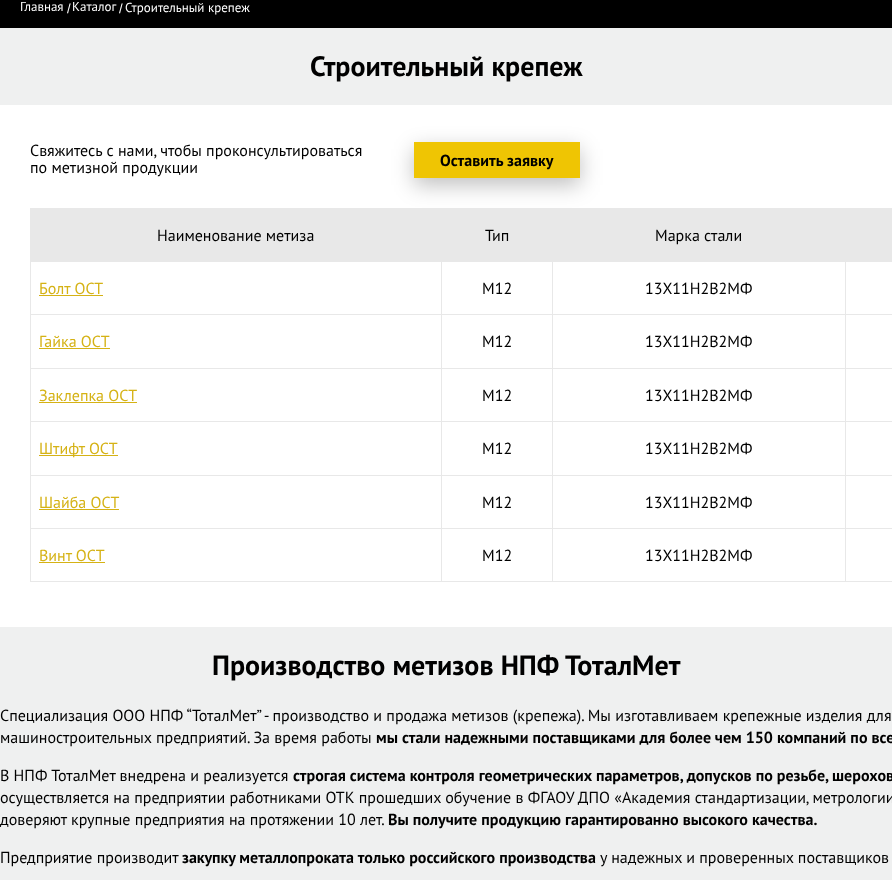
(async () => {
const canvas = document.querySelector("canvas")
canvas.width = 892
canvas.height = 880
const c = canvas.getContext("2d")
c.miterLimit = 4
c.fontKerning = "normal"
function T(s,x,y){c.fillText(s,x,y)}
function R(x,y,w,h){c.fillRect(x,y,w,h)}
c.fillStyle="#eff0f0"
R(0,0,892,880)
c.fillStyle="#000"
R(0,0,892,28)
c.font="13px PT Sans"
c.fillStyle="#fff"
T("Главная",20,11)
c.font="13px Liberation Sans"
T("/",67,13)
c.font="13px PT Sans"
T("Каталог",72,11)
c.font="13px Liberation Sans"
T("/",119,13)
c.font="13px PT Sans"
T("Строительный крепеж",125,12)
c.font="bold 28px PT Sans"
c.fillStyle="#000"
T("Строительный крепеж",310,76)
c.fillStyle="#fff"
R(0,105,892,522)
c.font="16px PT Sans"
c.fillStyle="#000"
T("Свяжитесь с нами, чтобы проконсультироваться",30,156)
T("по метизной продукции",30,173)
c.fillStyle="#e8e8e8"
R(30,208,862,1)
R(31,209,861,53)
c.fillStyle="#00000040"
c.filter="blur(10.5px)"
c.beginPath()
c.rect(414,149,166,36)
c.fill()
c.filter="none"
c.fillStyle="#efc503"
R(414,142,166,36)
c.font="bold 16px PT Sans"
c.fillStyle="#000"
T("Оставить заявку",440,166)
c.fillStyle="#e8e8e8"
R(30,581,862,1)
R(30,208,1,374)
c.font="16px PT Sans"
c.fillStyle="#000"
T("Наименование метиза",157,241)
T("Тип",485,241)
T("Марка стали",655,241)
c.fillStyle="#d5b215"
T("Болт ОСТ",39,294)
R(39,295,64,1)
c.fillStyle="#e8e8e8"
R(845,314,47,1)
R(845,368,47,1)
R(845,421,47,1)
R(845,475,47,1)
R(845,528,47,1)
R(845,528,1,54)
R(552,528,294,1)
R(845,475,1,54)
R(552,475,294,1)
R(845,421,1,55)
R(552,421,294,1)
R(845,368,1,54)
R(552,368,294,1)
R(845,314,1,55)
R(552,314,294,1)
R(552,528,1,54)
R(441,528,112,1)
R(552,475,1,54)
R(441,475,112,1)
R(552,421,1,55)
R(441,421,112,1)
R(552,368,1,54)
R(441,368,112,1)
R(552,314,1,55)
R(441,314,112,1)
R(441,528,1,54)
R(30,528,412,1)
R(441,475,1,54)
R(30,475,412,1)
R(441,421,1,55)
R(30,421,412,1)
R(441,368,1,54)
R(30,368,412,1)
R(441,314,1,55)
R(30,314,412,1)
R(441,261,1,54)
c.fillStyle="#000"
T("М12",482,294)
c.fillStyle="#e8e8e8"
R(552,261,1,54)
c.fillStyle="#000"
T("13Х11Н2В2МФ",645,294)
c.fillStyle="#e8e8e8"
R(845,261,1,54)
c.fillStyle="#d5b215"
T("Гайка ОСТ",39,347)
R(39,348,71,1)
c.fillStyle="#000"
T("М12",482,347)
T("13Х11Н2В2МФ",645,347)
c.fillStyle="#d5b215"
T("Заклепка ОСТ",39,401)
R(39,402,98,1)
c.fillStyle="#000"
T("М12",482,401)
T("13Х11Н2В2МФ",645,401)
c.fillStyle="#d5b215"
R(39,455,79,1)
T("Штифт ОСТ",39,454)
c.fillStyle="#000"
T("М12",482,454)
T("13Х11Н2В2МФ",645,454)
c.fillStyle="#d5b215"
T("Шайба ОСТ",39,508)
R(39,509,80,1)
c.fillStyle="#000"
T("М12",482,508)
T("13Х11Н2В2МФ",645,508)
c.fillStyle="#d5b215"
T("Винт ОСТ",39,561)
R(39,562,66,1)
c.fillStyle="#000"
T("М12",482,561)
T("13Х11Н2В2МФ",645,561)
c.font="bold 28px PT Sans"
T("Производство метизов НПФ ТоталМет",212,675)
c.font="16px PT Sans"
T("Специализация ООО НПФ “ТоталМет” - производство и продажа метизов (крепежа). Мы изготавливаем крепежные изделия для",0,721)
T("машиностроительных предприятий. За время работы",0,743)
c.font="bold 16px PT Sans"
T("мы стали надежными поставщиками для более чем 150 компаний по все",376,743)
c.font="16px PT Sans"
T("В НПФ ТоталМет внедрена и реализуется",0,781)
c.font="bold 16px PT Sans"
T("строгая система контроля геометрических параметров, допусков по резьбе, шерохов",293,781)
c.font="16px PT Sans"
T("осуществляется на предприятии работниками ОТК прошедших обучение в ФГАОУ ДПО «Академия стандартизации, метрологии",0,803)
T("доверяют крупные предприятия на протяжении 10 лет.",0,825)
c.font="bold 16px PT Sans"
T("Вы получите продукцию гарантированно высокого качества.",388,825)
c.font="16px PT Sans"
T("Предприятие производит",0,863)
c.font="bold 16px PT Sans"
T("закупку металлопроката только российского производства",182,863)
c.font="16px PT Sans"
T("у надежных и проверенных поставщиков",600,863)
})()
